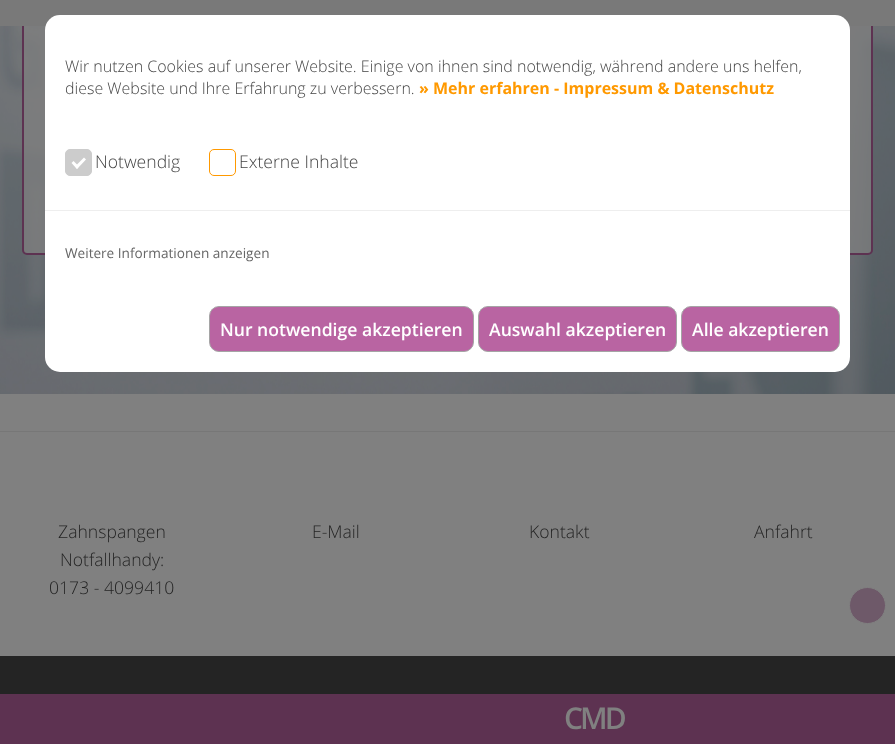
(async () => {
const canvas = document.querySelector("canvas")
canvas.width = 895
canvas.height = 744
const c = canvas.getContext("2d")
c.miterLimit = 4
c.fontKerning = "normal"
function T(s,x,y){c.fillText(s,x,y)}
function R(x,y,w,h){c.fillRect(x,y,w,h)}
function Q(x,y,w,h,r){c.beginPath();c.roundRect(x,y,w,h,r);c.fill()}
async function I(src,x,y,w,h){const img=new Image();img.src=src;await img.decode();c.drawImage(img,x,y,w,h)}
let path
c.fillStyle="#808080"
R(0,0,895,744)
await I("1.png",0,26,895,368)
c.fillStyle="#808080b3"
c.beginPath()
c.roundRect(23,-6,849,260,4)
c.fill()
c.strokeStyle="#5d3251"
c.lineWidth=2
c.stroke()
c.fillStyle="#797979"
R(0,0,895,26)
c.fillStyle="#fff"
Q(45,15,805,357,15)
c.font="300 16px Open Sans"
c.fillStyle="#444"
T("Wir nutzen Cookies auf unserer Website. Einige von ihnen sind notwendig, während andere uns helfen,",65,72)
T("diese Website und Ihre Erfahrung zu verbessern.",65,94)
c.font="bold 16px Open Sans"
c.fillStyle="#f90"
T("» Mehr erfahren - Impressum & Datenschutz",419,94)
c.fillStyle="#ccc"
c.beginPath()
c.roundRect(65.5,149.5,26,26,4.5)
c.fill()
c.strokeStyle="#ccc"
c.lineWidth=1
c.stroke()
c.fillStyle="#fff"
path = new Path2D("M84 157.5l2 2l-9 9.5l-2-2.5z")
c.fill(path)
path = new Path2D("M73.5 161l5.5 5.5l-2 2.5l-5.5-6z")
c.fill(path)
c.font="300 17.6px Open Sans"
c.fillStyle="#444"
T("Notwendig",95,168)
c.beginPath()
c.roundRect(209.5,149.5,26,26,4.5)
c.strokeStyle="#f90"
c.stroke()
T("Externe Inhalte",239,168)
c.fillStyle="#eee"
R(45,210,805,1)
c.font="13.6px Open Sans"
c.fillStyle="#666"
T("Weitere Informationen anzeigen",65,258)
c.fillStyle="#b964a2"
c.beginPath()
c.roundRect(209.5,306.5,264,45,9.5)
c.fill()
c.strokeStyle="#a5a5a5"
c.stroke()
c.font="600 17.6px Open Sans"
c.fillStyle="#fff"
T("Nur notwendige akzeptieren",220,336)
c.fillStyle="#b964a2"
c.beginPath()
c.roundRect(478.5,306.5,198,45,9.5)
c.fill()
c.stroke()
c.fillStyle="#fff"
T("Auswahl akzeptieren",489,336)
c.fillStyle="#b964a2"
c.beginPath()
c.roundRect(681.5,306.5,158,45,9.5)
c.fill()
c.stroke()
c.fillStyle="#fff"
T("Alle akzeptieren",692,336)
c.fillStyle="#777"
R(0,431,895,1)
c.font="300 17.6px Open Sans"
c.fillStyle="#242424"
T("Zahnspangen",58,538)
T("Notfallhandy:",60,566)
T("0173 - 4099410",49,594)
T("E-Mail",312,538)
T("Kontakt",529,538)
T("Anfahrt",754,538)
R(0,656,895,38)
c.fillStyle="#6e5969"
c.beginPath()
c.arc(867.5,605.5,18,0,7)
c.fill()
c.strokeStyle="#808080"
c.stroke()
c.fillStyle="#5d3251"
R(0,694,895,50)
c.letterSpacing="-3px"
c.font="600 30px Open Sans"
c.fillStyle="#808080"
T("CMD",564,729)
})()
